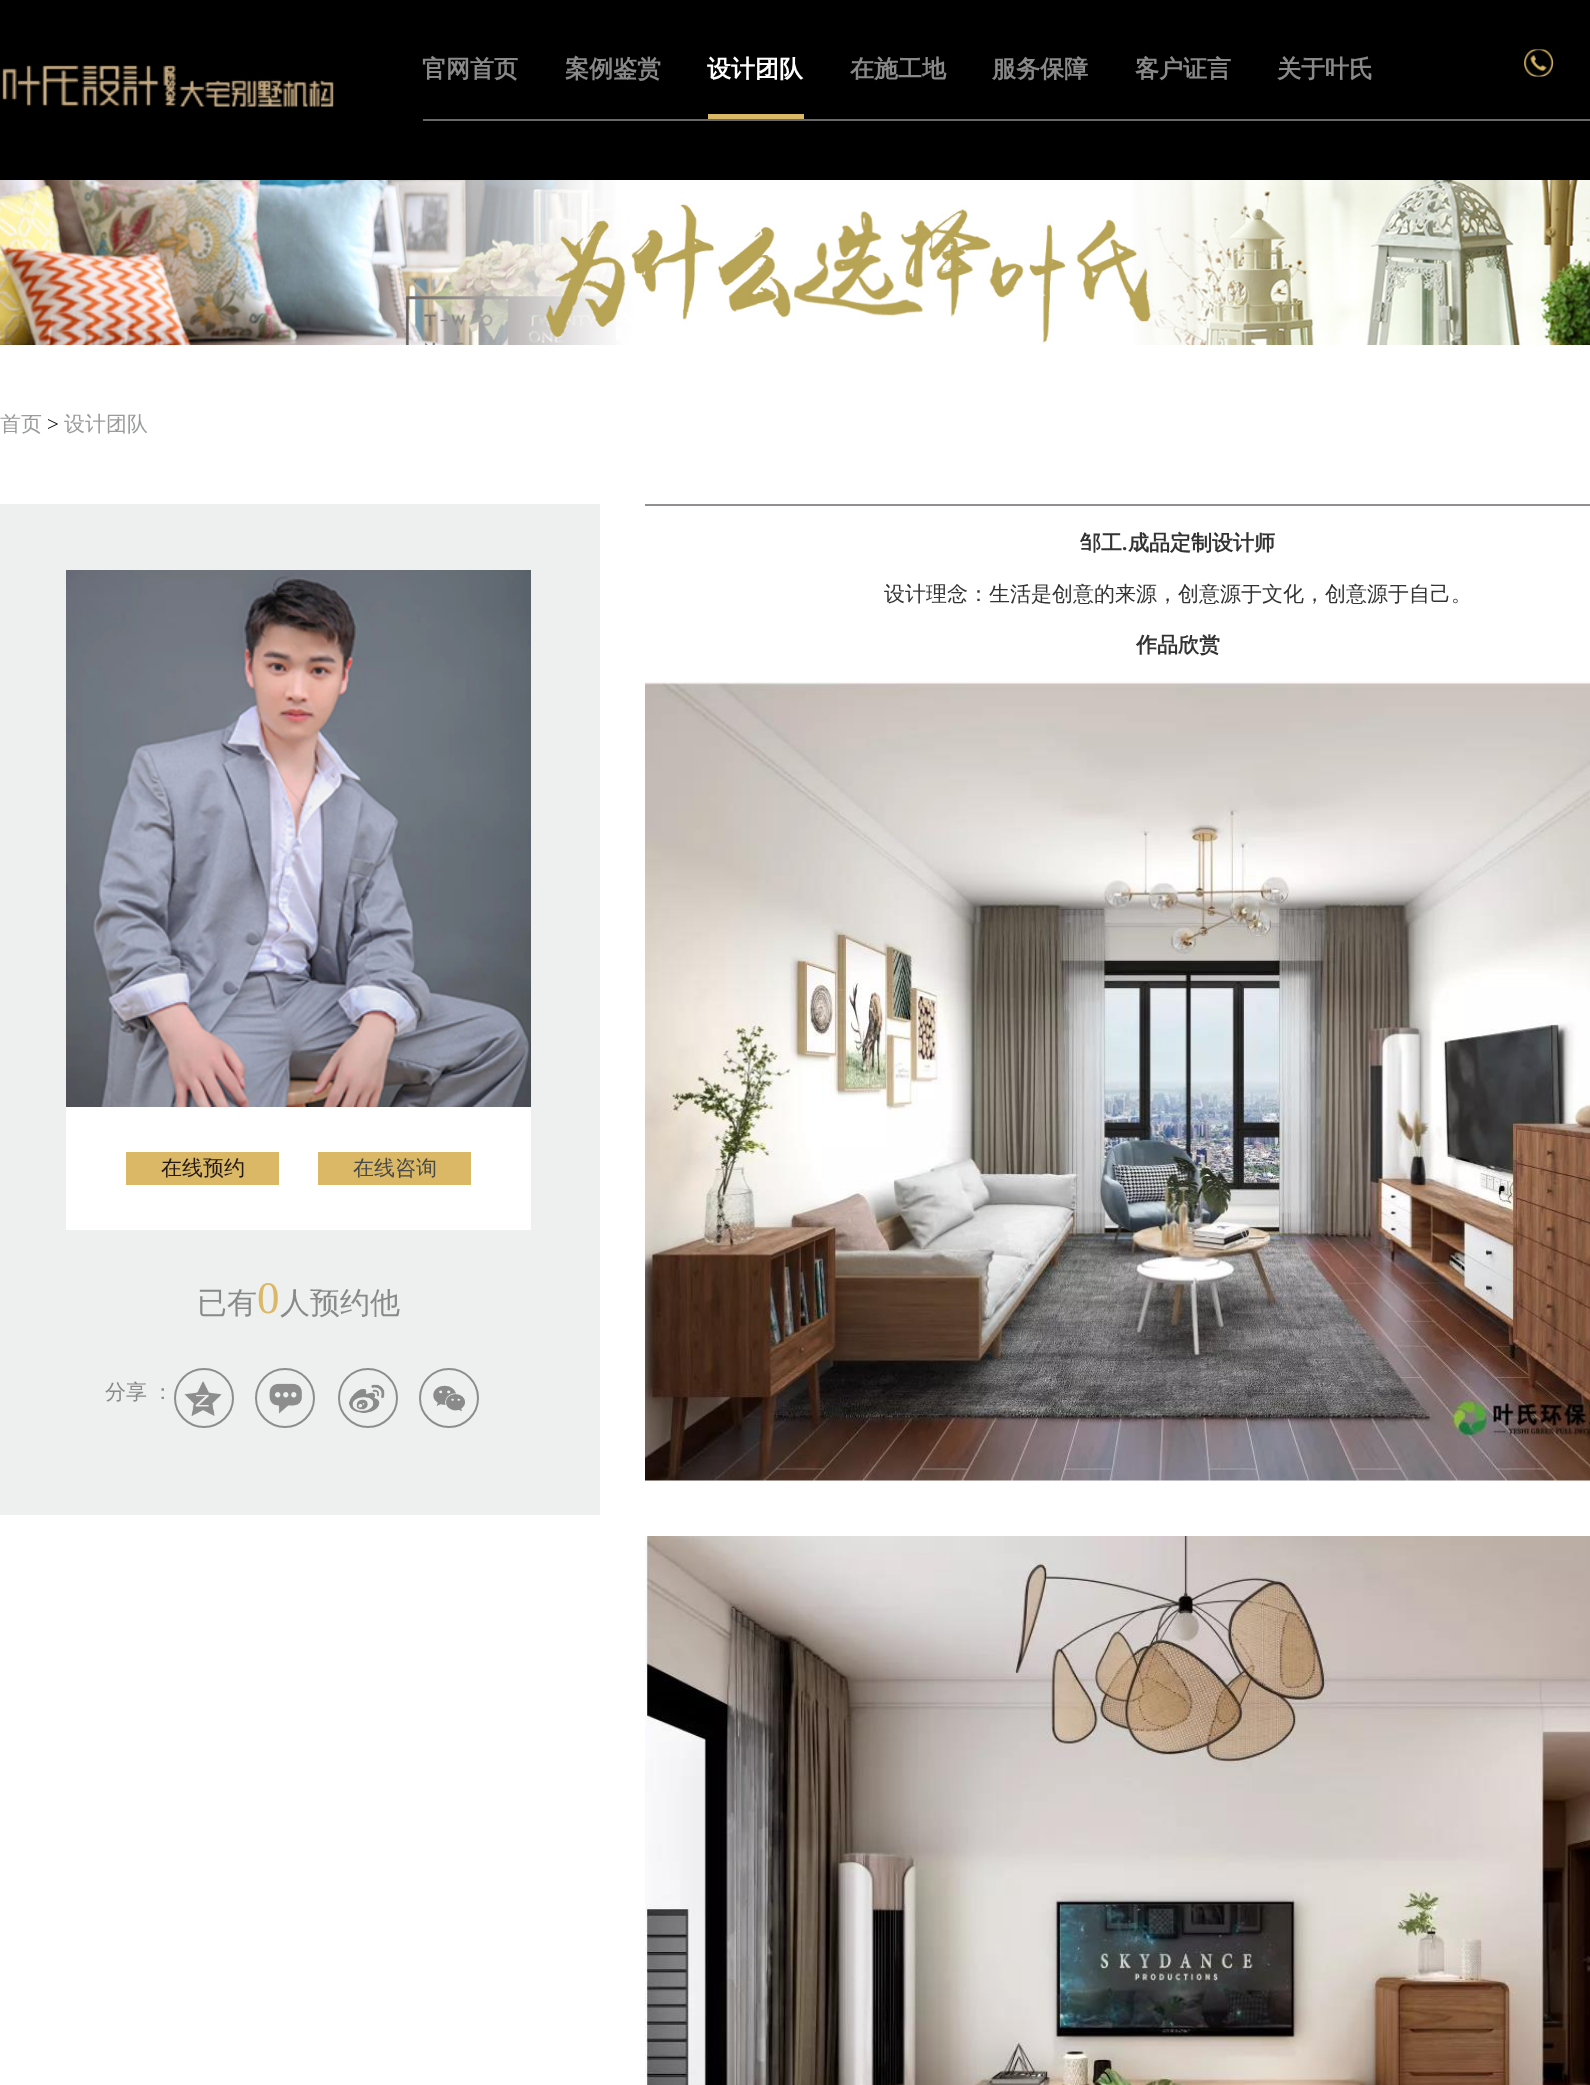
(async () => {
const canvas = document.querySelector("canvas")
canvas.width = 1590
canvas.height = 2085
const c = canvas.getContext("2d")
c.miterLimit = 4
c.fontKerning = "normal"
function T(s,x,y){c.fillText(s,x,y)}
function R(x,y,w,h){c.fillRect(x,y,w,h)}
async function I(src,x,y,w,h){const img=new Image();img.src=src;await img.decode();c.drawImage(img,x,y,w,h)}
c.fillStyle="#fff"
R(0,0,1590,2085)
c.fillStyle="#000"
R(0,0,1590,180)
await I("1.png",2,65,332,42)
c.fillStyle="#696969"
R(423,119,1167,2)
c.font="bold 24px WenQuanYi Zen Hei"
c.fillStyle="#898989"
T("官网首页",422,77)
T("案例鉴赏",565,77)
c.fillStyle="#dab866"
R(708,114,96,5)
c.fillStyle="#fff"
T("设计团队",707,77)
c.fillStyle="#898989"
T("在施工地",850,77)
T("服务保障",992,77)
T("客户证言",1135,77)
T("关于叶氏",1277,77)
await I("2.png",1524,49,30,28)
await I("3.png",0,180,1590,165)
c.font="500 21px WenQuanYi Zen Hei"
c.fillStyle="#9a9b9b"
T("首页",0,431)
c.font="21px Liberation Serif"
c.fillStyle="#000"
T(">",47,431)
c.font="500 21px WenQuanYi Zen Hei"
c.fillStyle="#9a9b9b"
T("设计团队",64,431)
c.fillStyle="#918f90"
R(645,504,945,2)
c.font="bold 21px WenQuanYi Zen Hei"
c.fillStyle="#333"
T("邹工",1080,550)
c.font="bold 21px Liberation Serif"
T(".",1122,550)
c.font="bold 21px WenQuanYi Zen Hei"
T("成品定制设计师",1128,550)
c.font="500 21px WenQuanYi Zen Hei"
T("设计理念：生活是创意的来源，创意源于文化，创意源于自己。",884,601)
c.font="bold 21px WenQuanYi Zen Hei"
T("作品欣赏",1136,652)
await I("4.png",645,682,945,799)
await I("5.png",645,1536,945,549)
c.fillStyle="#eeefef"
R(0,504,600,1011)
await I("6.png",66,570,465,537)
c.fillStyle="#fff"
R(66,1107,465,123)
c.fillStyle="#dab866"
R(126,1152,153,33)
c.font="500 21px WenQuanYi Zen Hei"
c.fillStyle="#231815"
T("在线预约",161,1175)
c.fillStyle="#dab866"
R(318,1152,153,33)
c.fillStyle="#494949"
T("在线咨询",353,1175)
c.font="500 30px WenQuanYi Zen Hei"
c.fillStyle="#898989"
T("已有",197,1313)
c.font="45px Liberation Serif"
c.fillStyle="#dab866"
T("0",257,1313)
c.font="500 30px WenQuanYi Zen Hei"
c.fillStyle="#898989"
T("人预约他",280,1313)
c.wordSpacing="-1px"
c.font="500 21px WenQuanYi Zen Hei"
T("分享 ：",105,1399)
await I("7.png",184,1381,38,35)
c.beginPath()
c.arc(204,1398,29,0,7)
c.strokeStyle="#8d8d8e"
c.lineWidth=2
c.stroke()
await I("8.png",269,1383,33,31)
c.beginPath()
c.arc(285,1398,29,0,7)
c.stroke()
await I("9.png",349,1384,36,29)
c.beginPath()
c.arc(368,1398,29,0,7)
c.stroke()
await I("10.png",433,1385,32,27)
c.beginPath()
c.arc(449,1398,29,0,7)
c.stroke()
})()
